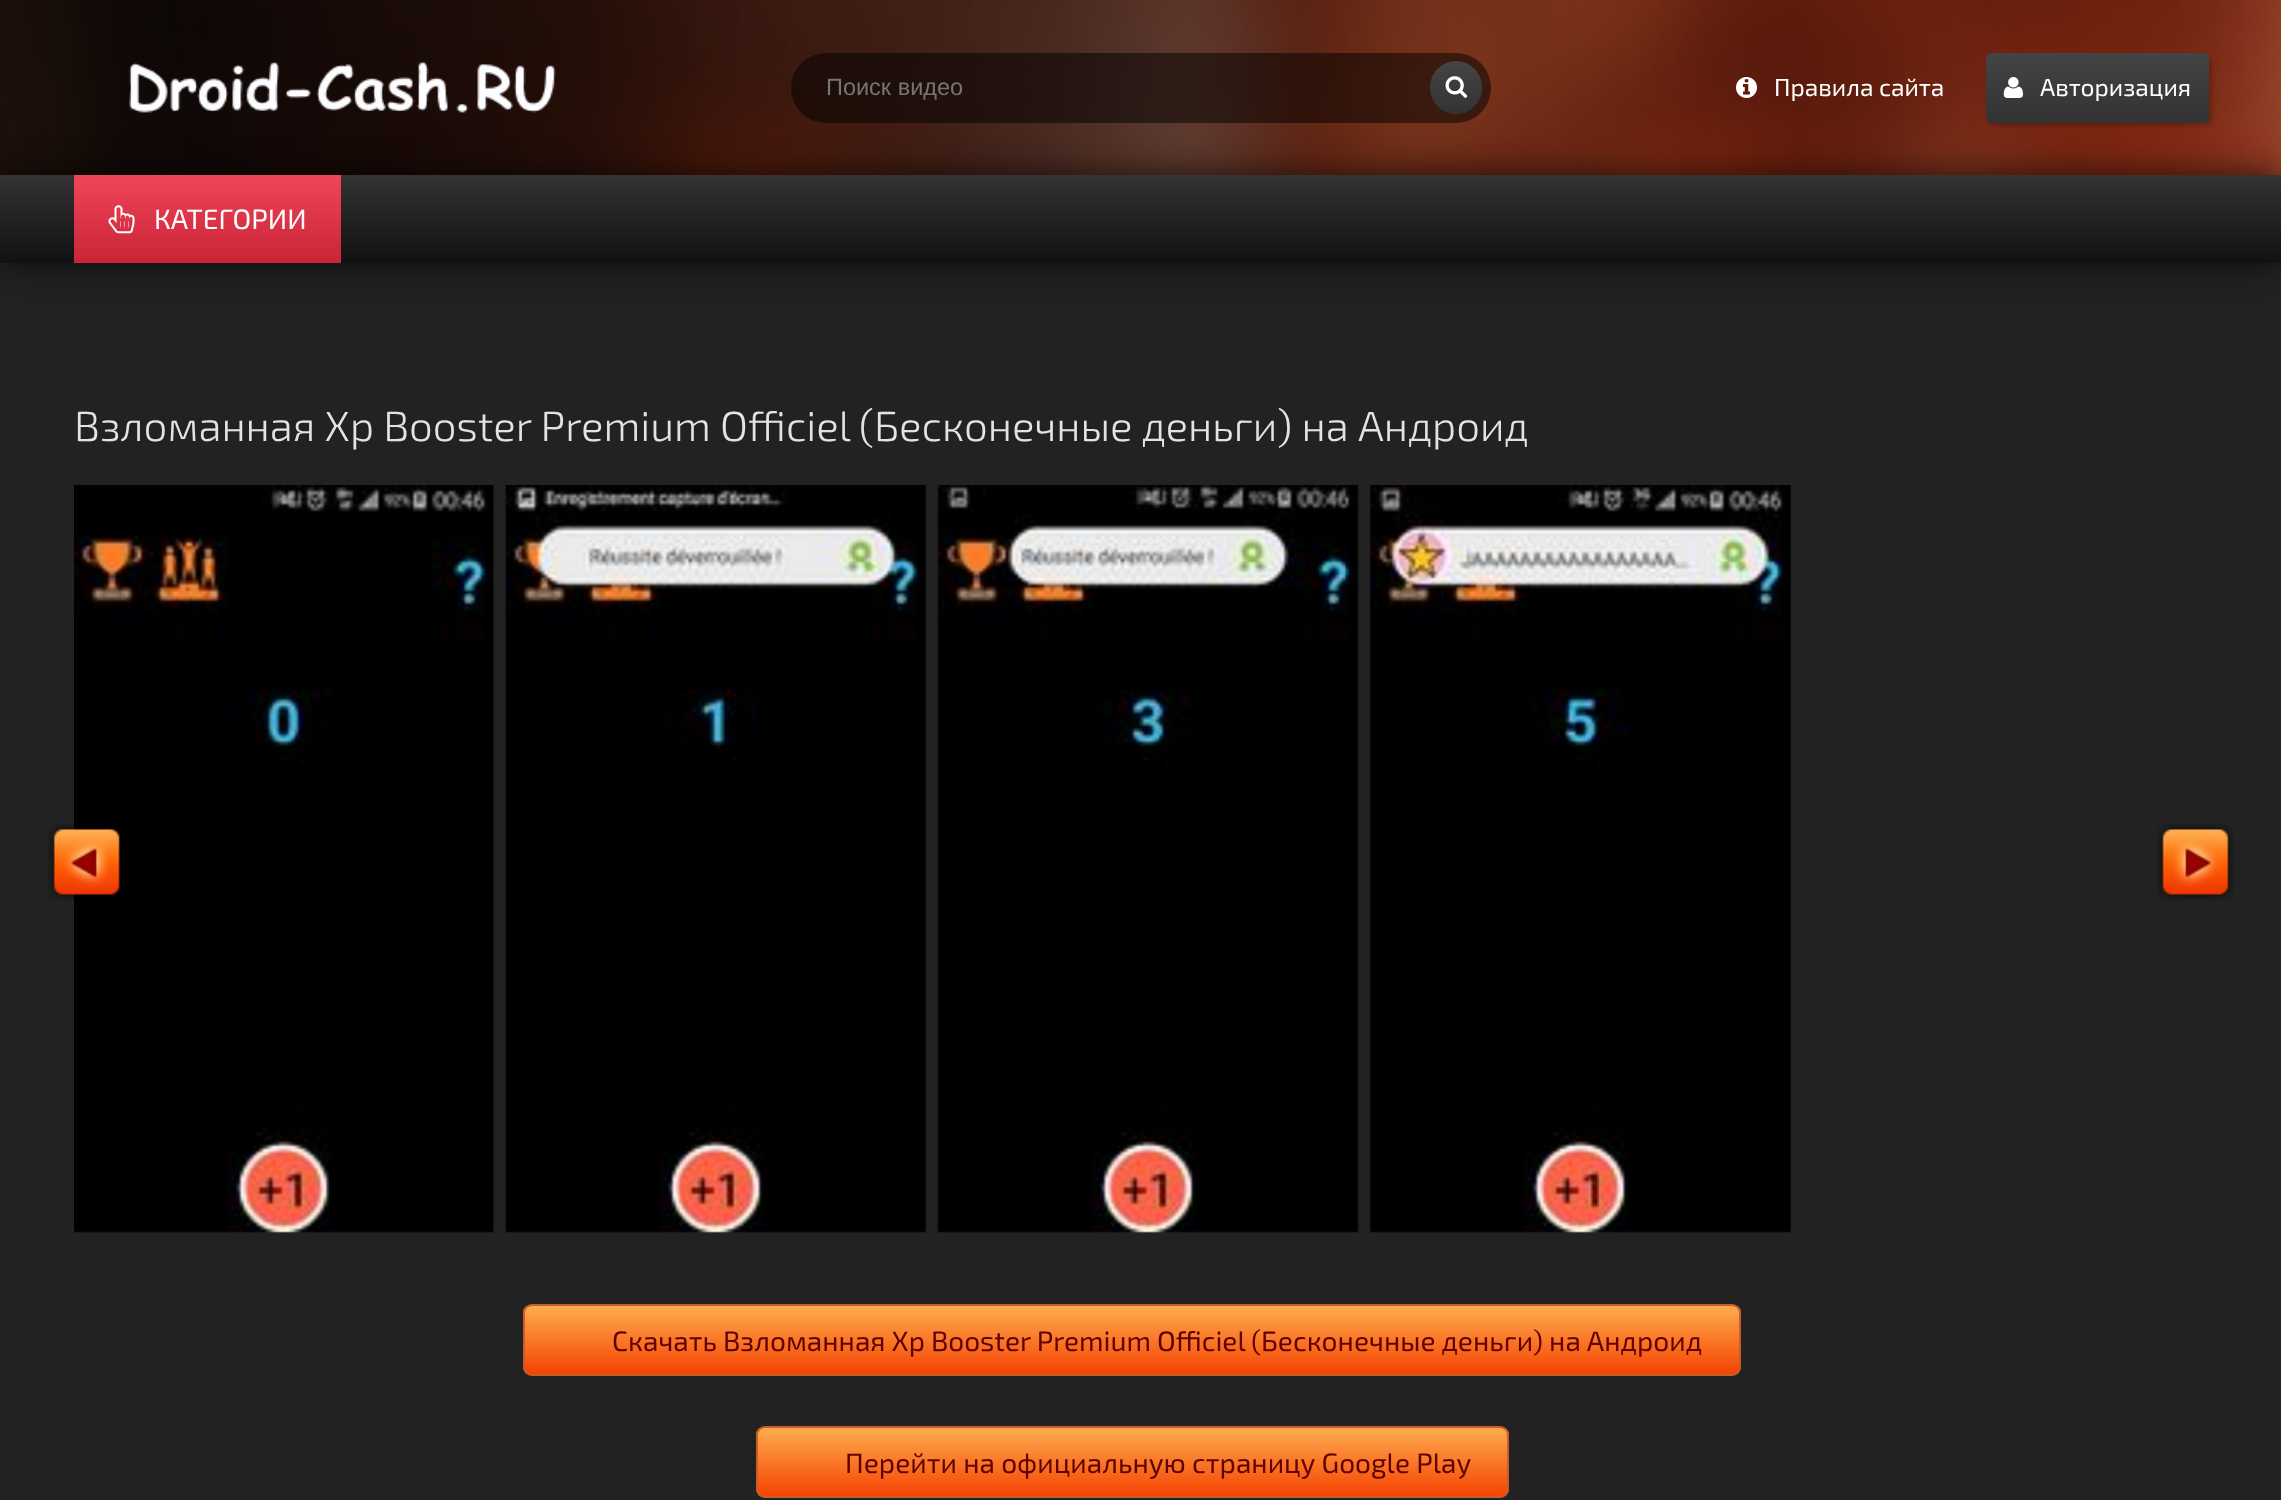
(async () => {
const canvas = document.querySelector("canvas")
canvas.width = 2281
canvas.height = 1500
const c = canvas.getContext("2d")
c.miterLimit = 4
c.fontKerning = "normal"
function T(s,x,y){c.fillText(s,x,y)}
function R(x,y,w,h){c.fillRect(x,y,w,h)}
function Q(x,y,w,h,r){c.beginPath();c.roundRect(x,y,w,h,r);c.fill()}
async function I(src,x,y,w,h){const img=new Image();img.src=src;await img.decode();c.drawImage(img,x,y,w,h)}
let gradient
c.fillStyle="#222"
R(0,0,2281,1500)
await I("1.png",0,0,2281,175)
await I("2.png",129,61,427,52)
c.fillStyle="#000000b3"
c.filter="blur(17.5px)"
c.beginPath()
c.rect(0,175,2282,88)
c.fill()
c.filter="none"
c.fillStyle="#00000080"
Q(791,53,700,70,35)
c.font="23.5px Liberation Sans"
c.fillStyle="#757575"
T("Поиск видео",826,95)
gradient = c.createLinearGradient(1456,61,1456,114)
gradient.addColorStop(0,"#444")
gradient.addColorStop(1,"#333")
c.fillStyle = gradient
Q(1430,61,52,53,26)
await I("3.png",1445,76,23,22)
await I("4.png",1736,77,21,21)
c.font="24.5px 'Exo 2'"
c.fillStyle="#fff"
T("Правила сайта",1774,96)
c.fillStyle="#00000033"
c.filter="blur(2px)"
c.beginPath()
c.roundRect(1990,56,222,70,5)
c.fill()
c.filter="none"
gradient = c.createLinearGradient(2097,52,2097,123)
gradient.addColorStop(0,"#444")
gradient.addColorStop(1,"#333")
c.fillStyle = gradient
Q(1986,53,223,70,5)
await I("5.png",2003,77,20,21)
c.fillStyle="#fff"
T("Авторизация",2040,96)
gradient = c.createLinearGradient(1141,175,1141,263)
gradient.addColorStop(0,"#333")
gradient.addColorStop(.5,"#222")
gradient.addColorStop(1,"#111")
c.fillStyle = gradient
R(0,175,2281,88)
gradient = c.createLinearGradient(207,175,207,263)
gradient.addColorStop(0,"#ef4559")
gradient.addColorStop(1,"#ca2437")
c.fillStyle = gradient
R(74,175,267,88)
await I("6.png",108,205,27,29)
c.font="28px 'Exo 2'"
c.fillStyle="#fff"
T("КАТЕГОРИИ",154,229)
c.wordSpacing="-0.25px"
c.font="300 42px 'Exo 2'"
c.fillStyle="#e3e3e3"
T("Взломанная Xp Booster Premium Officiel (Бесконечные деньги) на Андроид",74,441)
await I("7.png",74,485,420,748)
await I("8.png",505,485,422,748)
await I("9.png",937,485,422,748)
await I("10.png",1369,485,422,748)
await I("11.png",48,824,73,76)
await I("12.png",2157,824,77,76)
c.save()
c.beginPath()
c.roundRect(523,1304,1218,72,9)
c.clip()
gradient = c.createLinearGradient(1132,1306,1132,1374)
gradient.addColorStop(.05,"#fea74a")
gradient.addColorStop(1,"#f54303")
c.fillStyle = gradient
R(523,1306,1218,68)
c.restore()
c.beginPath()
c.roundRect(524,1305,1216,70,8)
c.strokeStyle="#c95d26"
c.lineWidth=2
c.stroke()
c.font="28px 'Exo 2'"
c.fillStyle="#600200"
T("Скачать Взломанная Xp Booster Premium Officiel (Бесконечные деньги) на Андроид",612,1351)
c.save()
c.beginPath()
c.roundRect(756,1426,753,72,9)
c.clip()
gradient = c.createLinearGradient(1132,1428,1132,1496)
gradient.addColorStop(.05,"#fea74a")
gradient.addColorStop(1,"#f54303")
c.fillStyle = gradient
R(756,1428,753,68)
c.restore()
c.beginPath()
c.roundRect(757,1427,751,70,8)
c.stroke()
c.wordSpacing="0px"
T("Перейти на официальную страницу Google Play",845,1473)
})()
